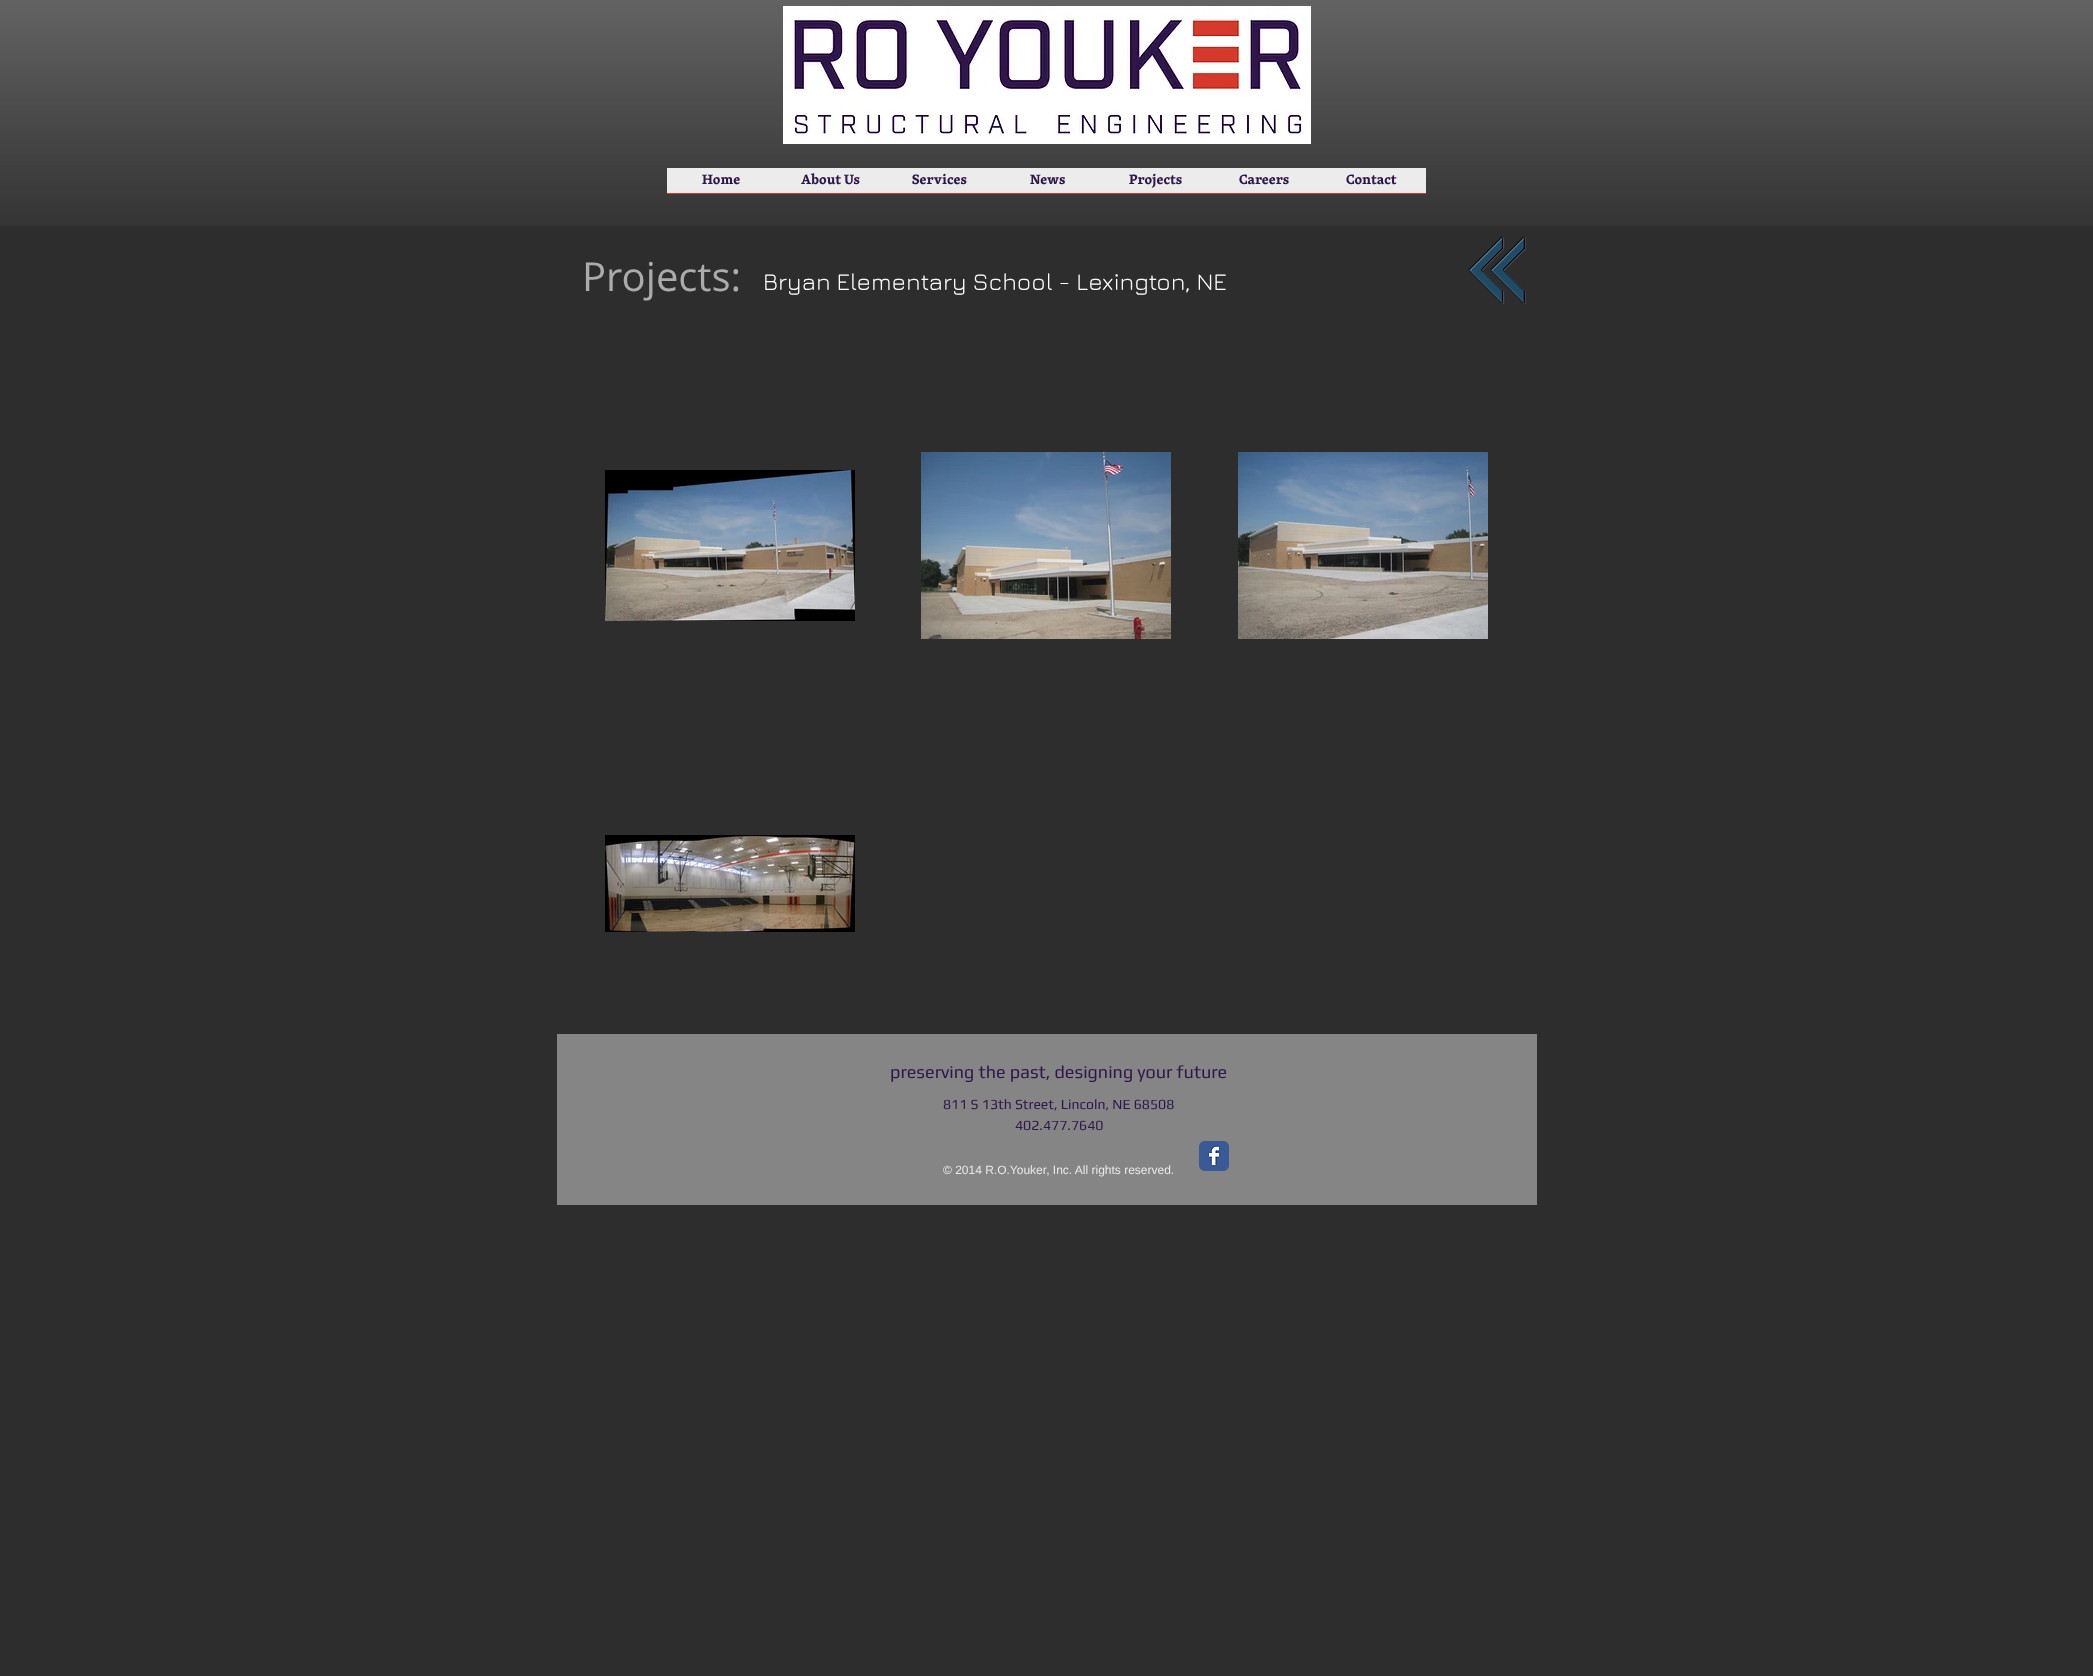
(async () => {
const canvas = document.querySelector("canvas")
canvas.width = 2093
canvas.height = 1676
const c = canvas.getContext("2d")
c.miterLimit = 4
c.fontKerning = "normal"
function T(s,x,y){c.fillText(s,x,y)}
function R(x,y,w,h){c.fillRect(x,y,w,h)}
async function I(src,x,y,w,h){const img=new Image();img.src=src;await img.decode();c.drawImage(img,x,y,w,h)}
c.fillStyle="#2d2d2d"
R(0,0,2093,1676)
await I("1.png",0,0,2093,226)
await I("2.png",783,6,528,138)
c.fillStyle="#ffffffe6"
R(667,168,759,25)
c.fillStyle="#d4382b"
R(667,193,759,1)
c.font="bold 14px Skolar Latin"
c.fillStyle="#301649"
T("Home",702,184)
T("About Us",801,184)
T("Services",912,184)
T("News",1030,184)
T("Projects",1129,184)
T("Careers",1239,184)
T("Contact",1346,184)
c.font="40px Open Sans"
c.fillStyle="#ababab"
T("Projects:",582,291)
c.font="24px Jura"
c.fillStyle="#fff"
T("Bryan Elementary School - Lexington, NE",763,290)
await I("3.png",1469,236,57,68)
await I("4.png",605,470,250,151)
await I("5.png",921,452,250,187)
await I("6.png",1238,452,250,187)
await I("7.png",605,835,250,97)
c.fillStyle="#858585"
R(557,1034,980,171)
c.font="18px Play"
c.fillStyle="#301649"
T("preserving the past, designing your future",890,1078)
c.font="14px Play"
T("811 S 13th Street, Lincoln, NE 68508",943,1109)
T("402.477.7640",1015,1130)
c.font="12px Liberation Sans"
c.fillStyle="#e8e8e8"
T("© 2014 R.O.Youker, Inc. All rights reserved.",943,1174)
await I("8.png",1199,1141,30,30)
})()
